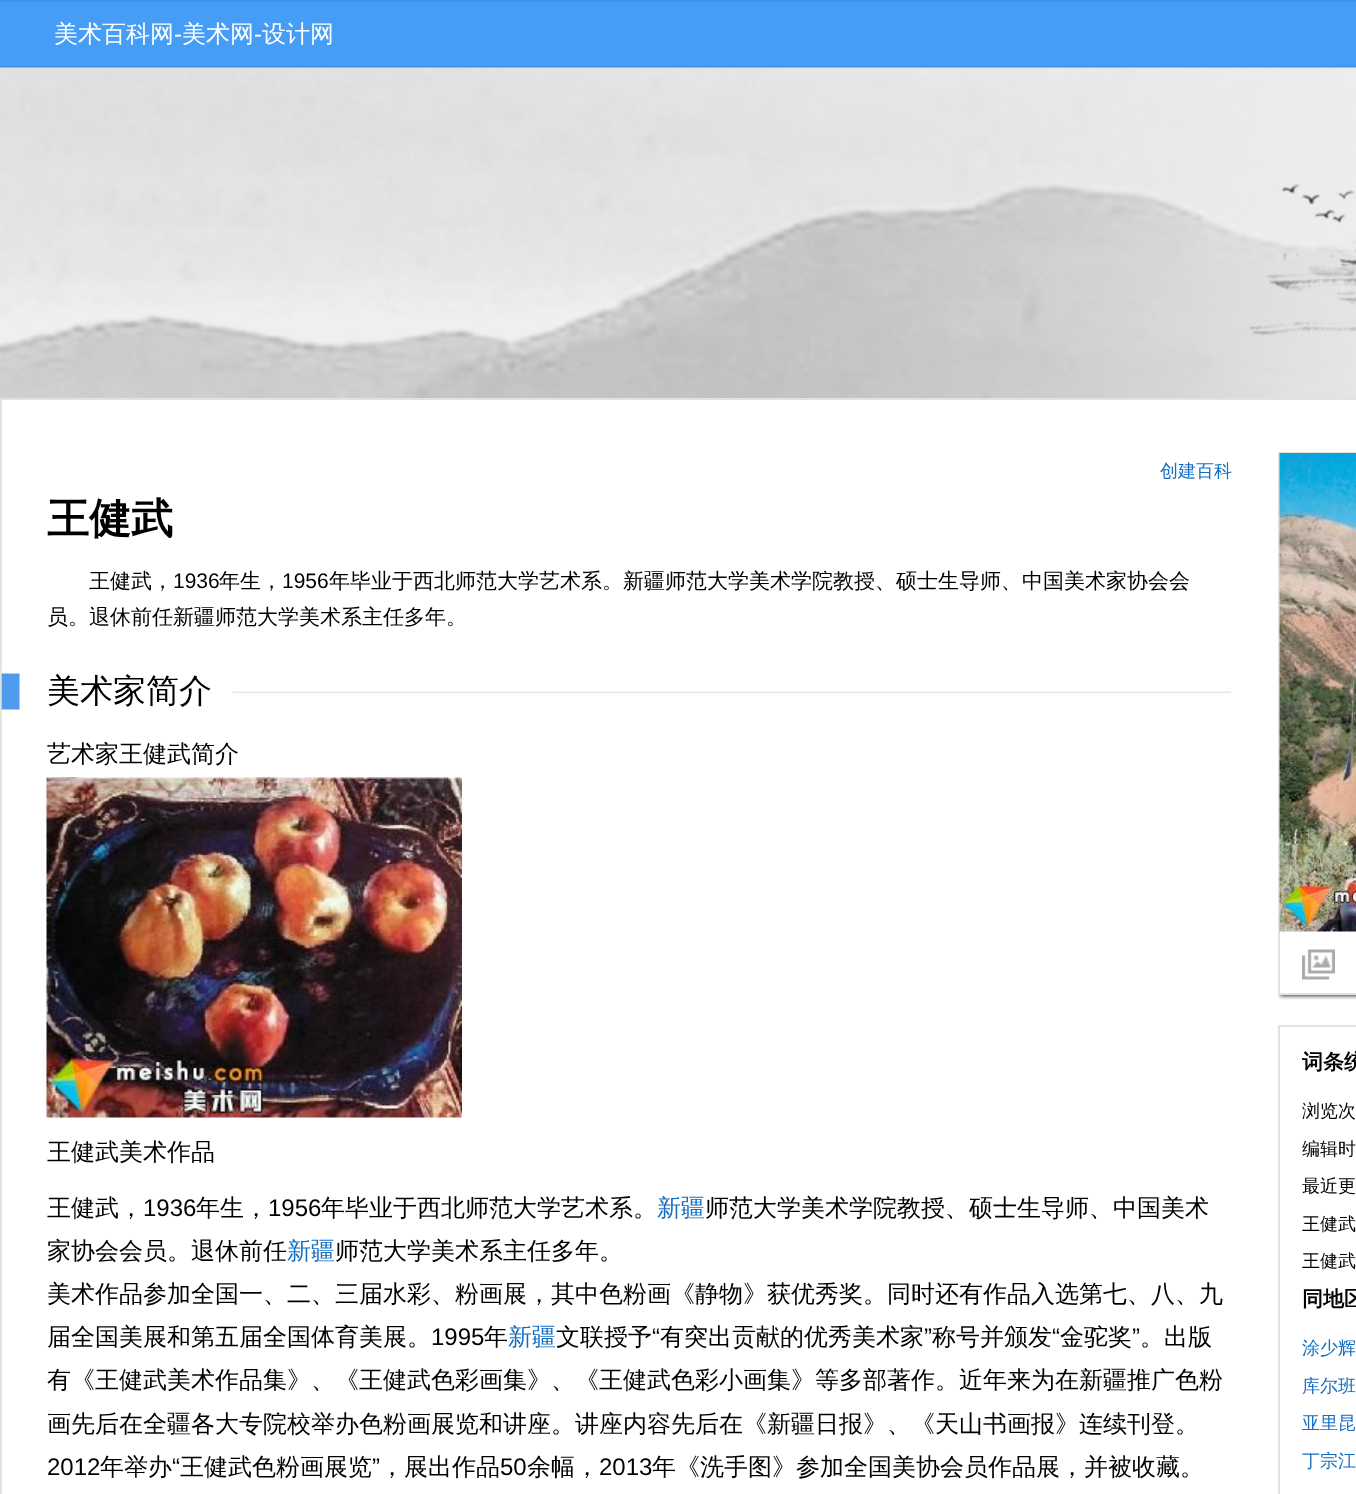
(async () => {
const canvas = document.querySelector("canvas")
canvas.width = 1356
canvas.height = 1494
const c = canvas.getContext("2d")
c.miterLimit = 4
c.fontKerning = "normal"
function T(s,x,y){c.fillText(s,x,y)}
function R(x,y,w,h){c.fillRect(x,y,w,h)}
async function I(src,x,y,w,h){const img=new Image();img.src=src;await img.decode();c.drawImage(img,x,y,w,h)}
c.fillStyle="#459df5"
R(0,0,1356,1494)
c.fillStyle="#3b92e9"
R(0,0,1356,2)
R(0,66,1356,2)
c.font="500 24px WenQuanYi Zen Hei"
c.fillStyle="#fff"
T("美术百科网",54,42)
c.font="24px Liberation Sans"
T("-",174,42)
c.font="500 24px WenQuanYi Zen Hei"
T("美术网",182,42)
c.font="24px Liberation Sans"
T("-",254,42)
c.font="500 24px WenQuanYi Zen Hei"
T("设计网",262,42)
await I("1.png",0,67,1356,331)
c.beginPath()
c.rect(1,399,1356,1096)
c.fill()
c.strokeStyle="#e2e2e2"
c.lineWidth=2
c.stroke()
c.font="500 18px WenQuanYi Zen Hei"
c.fillStyle="#136ec2"
T("创建百科",1160,477)
c.font="bold 42px WenQuanYi Zen Hei"
c.fillStyle="#000"
T("王健武",47,533)
c.font="500 21px WenQuanYi Zen Hei"
T("王健武，",89,588)
c.font="21px Liberation Sans"
T("1936",173,588)
c.font="500 21px WenQuanYi Zen Hei"
T("年生，",219,588)
c.font="21px Liberation Sans"
T("1956",282,588)
c.font="500 21px WenQuanYi Zen Hei"
T("年毕业于西北师范大学艺术系。新疆师范大学美术学院教授、硕士生导师、中国美术家协会会",329,588)
T("员。退休前任新疆师范大学美术系主任多年。",47,624)
await I("2.png",1,665,1231,53)
c.font="500 33px WenQuanYi Zen Hei"
T("美术家简介",47,702)
c.font="500 24px WenQuanYi Zen Hei"
T("艺术家王健武简介",47,762)
await I("3.png",46,777,416,341)
T("王健武美术作品",47,1160)
T("王健武，",47,1216)
c.font="24px Liberation Sans"
T("1936",143,1216)
c.font="500 24px WenQuanYi Zen Hei"
T("年生，",196,1216)
c.font="24px Liberation Sans"
T("1956",268,1216)
c.font="500 24px WenQuanYi Zen Hei"
T("年毕业于西北师范大学艺术系。",321,1216)
c.fillStyle="#136ec2"
T("新疆",657,1216)
c.fillStyle="#000"
T("师范大学美术学院教授、硕士生导师、中国美术",705,1216)
T("家协会会员。退休前任",47,1259)
c.fillStyle="#136ec2"
T("新疆",287,1259)
c.fillStyle="#000"
T("师范大学美术系主任多年。",335,1259)
T("美术作品参加全国一、二、三届水彩、粉画展，其中色粉画《静物》获优秀奖。同时还有作品入选第七、八、九",47,1302)
T("届全国美展和第五届全国体育美展。",47,1345)
c.font="24px Liberation Sans"
T("1995",431,1345)
c.font="500 24px WenQuanYi Zen Hei"
T("年",484,1345)
c.fillStyle="#136ec2"
T("新疆",508,1345)
c.fillStyle="#000"
T("文联授予",556,1345)
c.font="24px Liberation Sans"
T("“",652,1345)
c.font="500 24px WenQuanYi Zen Hei"
T("有突出贡献的优秀美术家",660,1345)
c.font="24px Liberation Sans"
T("”",924,1345)
c.font="500 24px WenQuanYi Zen Hei"
T("称号并颁发",932,1345)
c.font="24px Liberation Sans"
T("“",1052,1345)
c.font="500 24px WenQuanYi Zen Hei"
T("金驼奖",1060,1345)
c.font="24px Liberation Sans"
T("”",1132,1345)
c.font="500 24px WenQuanYi Zen Hei"
T("。出版",1140,1345)
T("有《王健武美术作品集》、《王健武色彩画集》、《王健武色彩小画集》等多部著作。近年来为在新疆推广色粉",47,1388)
T("画先后在全疆各大专院校举办色粉画展览和讲座。讲座内容先后在《新疆日报》、《天山书画报》连续刊登。",47,1432)
c.font="24px Liberation Sans"
T("2012",47,1475)
c.font="500 24px WenQuanYi Zen Hei"
T("年举办",100,1475)
c.font="24px Liberation Sans"
T("“",172,1475)
c.font="500 24px WenQuanYi Zen Hei"
T("王健武色粉画展览",180,1475)
c.font="24px Liberation Sans"
T("”",372,1475)
c.font="500 24px WenQuanYi Zen Hei"
T("，展出作品",380,1475)
c.font="24px Liberation Sans"
T("50",500,1475)
c.font="500 24px WenQuanYi Zen Hei"
T("余幅，",527,1475)
c.font="24px Liberation Sans"
T("2013",599,1475)
c.font="500 24px WenQuanYi Zen Hei"
T("年《洗手图》参加全国美协会员作品展，并被收藏。",652,1475)
c.save()
c.beginPath()
c.rect(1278,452,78,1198)
c.clip()
c.beginPath()
c.rect(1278,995,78,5)
c.clip()
c.fillStyle="#333"
c.filter="blur(2px)"
c.beginPath()
c.rect(1280,453,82,543)
c.fill()
c.filter="none"
c.restore()
c.strokeRect(1279,453,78,541)
await I("4.png",1279,453,77,479)
await I("5.png",1302,949,33,31)
c.strokeRect(1279,1026,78,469)
c.font="bold 21px WenQuanYi Zen Hei"
T("词条统",1302,1069)
c.font="500 18px WenQuanYi Zen Hei"
T("浏览次",1302,1117)
T("编辑时",1302,1155)
T("最近更",1302,1192)
T("王健武",1302,1230)
T("王健武",1302,1267)
c.font="bold 21px WenQuanYi Zen Hei"
T("同地区",1302,1306)
c.font="500 18px WenQuanYi Zen Hei"
c.fillStyle="#136ec2"
T("涂少辉",1302,1354)
T("库尔班",1302,1392)
T("亚里昆",1302,1429)
T("丁宗江",1302,1467)
})()
